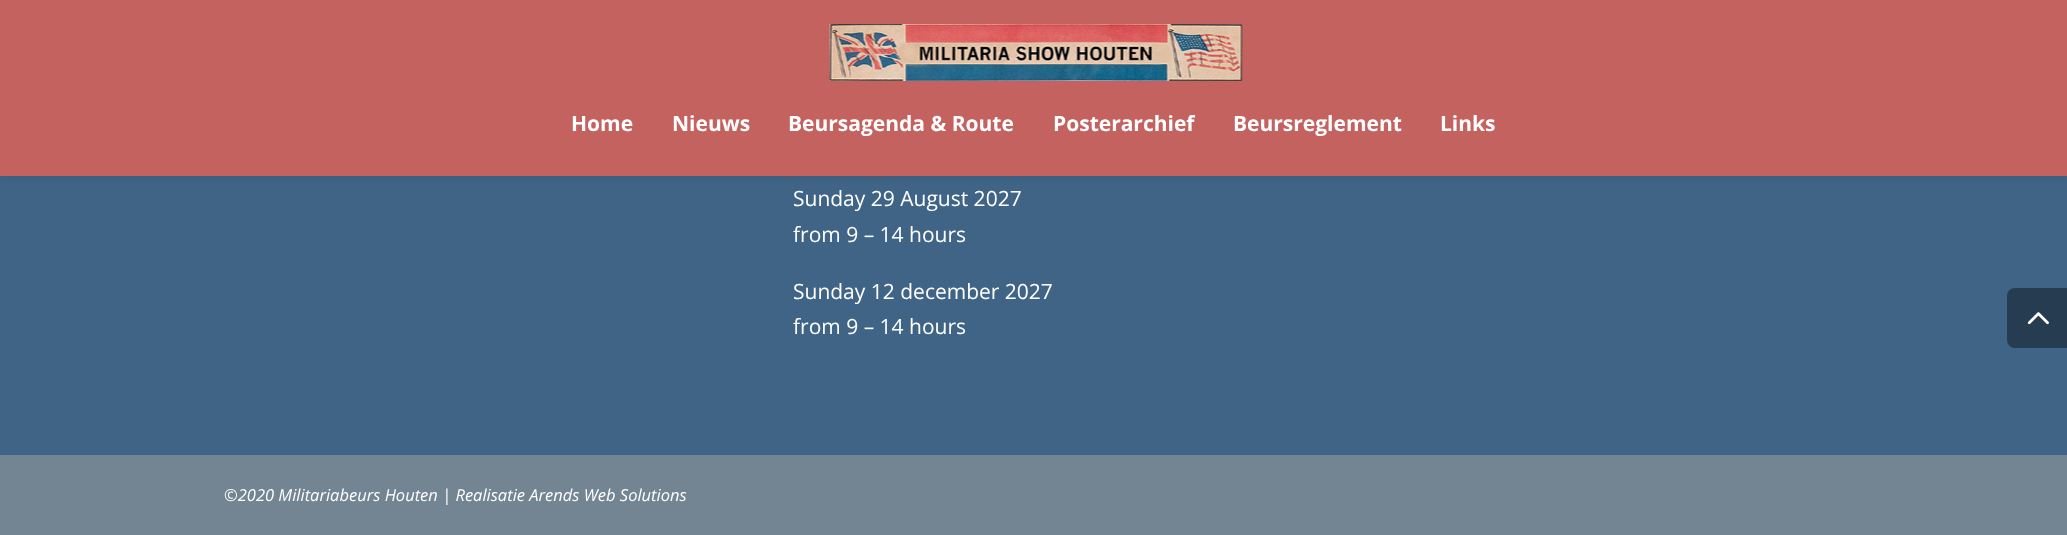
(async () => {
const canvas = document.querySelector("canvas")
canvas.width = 2067
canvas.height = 535
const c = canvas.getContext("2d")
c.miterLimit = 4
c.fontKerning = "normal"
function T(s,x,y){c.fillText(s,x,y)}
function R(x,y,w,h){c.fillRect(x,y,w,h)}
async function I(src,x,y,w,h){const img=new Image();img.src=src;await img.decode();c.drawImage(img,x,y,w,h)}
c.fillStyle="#406486"
R(0,0,2067,535)
c.fillStyle="#0000001a"
c.filter="blur(5px)"
c.beginPath()
c.rect(0,0,2067,176)
c.fill()
c.filter="none"
c.fillStyle="#c46260"
R(0,0,2067,176)
await I("1.png",829,24,414,57)
c.font="bold 21px Open Sans"
c.fillStyle="#fff"
T("Home",571,131)
T("Nieuws",672,131)
T("Beursagenda & Route",788,131)
T("Posterarchief",1053,131)
T("Beursreglement",1233,131)
T("Links",1440,131)
c.font="21px Open Sans"
T("Sunday 29 August 2027",793,206)
T("from 9 – 14 hours",793,242)
T("Sunday 12 december 2027",793,299)
T("from 9 – 14 hours",793,334)
c.fillStyle="#738493"
R(0,455,2067,80)
c.font="italic 16.5px Open Sans"
c.fillStyle="#fff"
T("©2020 Militariabeurs Houten | Realisatie Arends Web Solutions",224,501)
c.fillStyle="#263c50"
c.beginPath()
c.roundRect(2007,288,60,60,[8,0,0,8])
c.fill()
await I("2.png",2027,312,22,13)
})()
